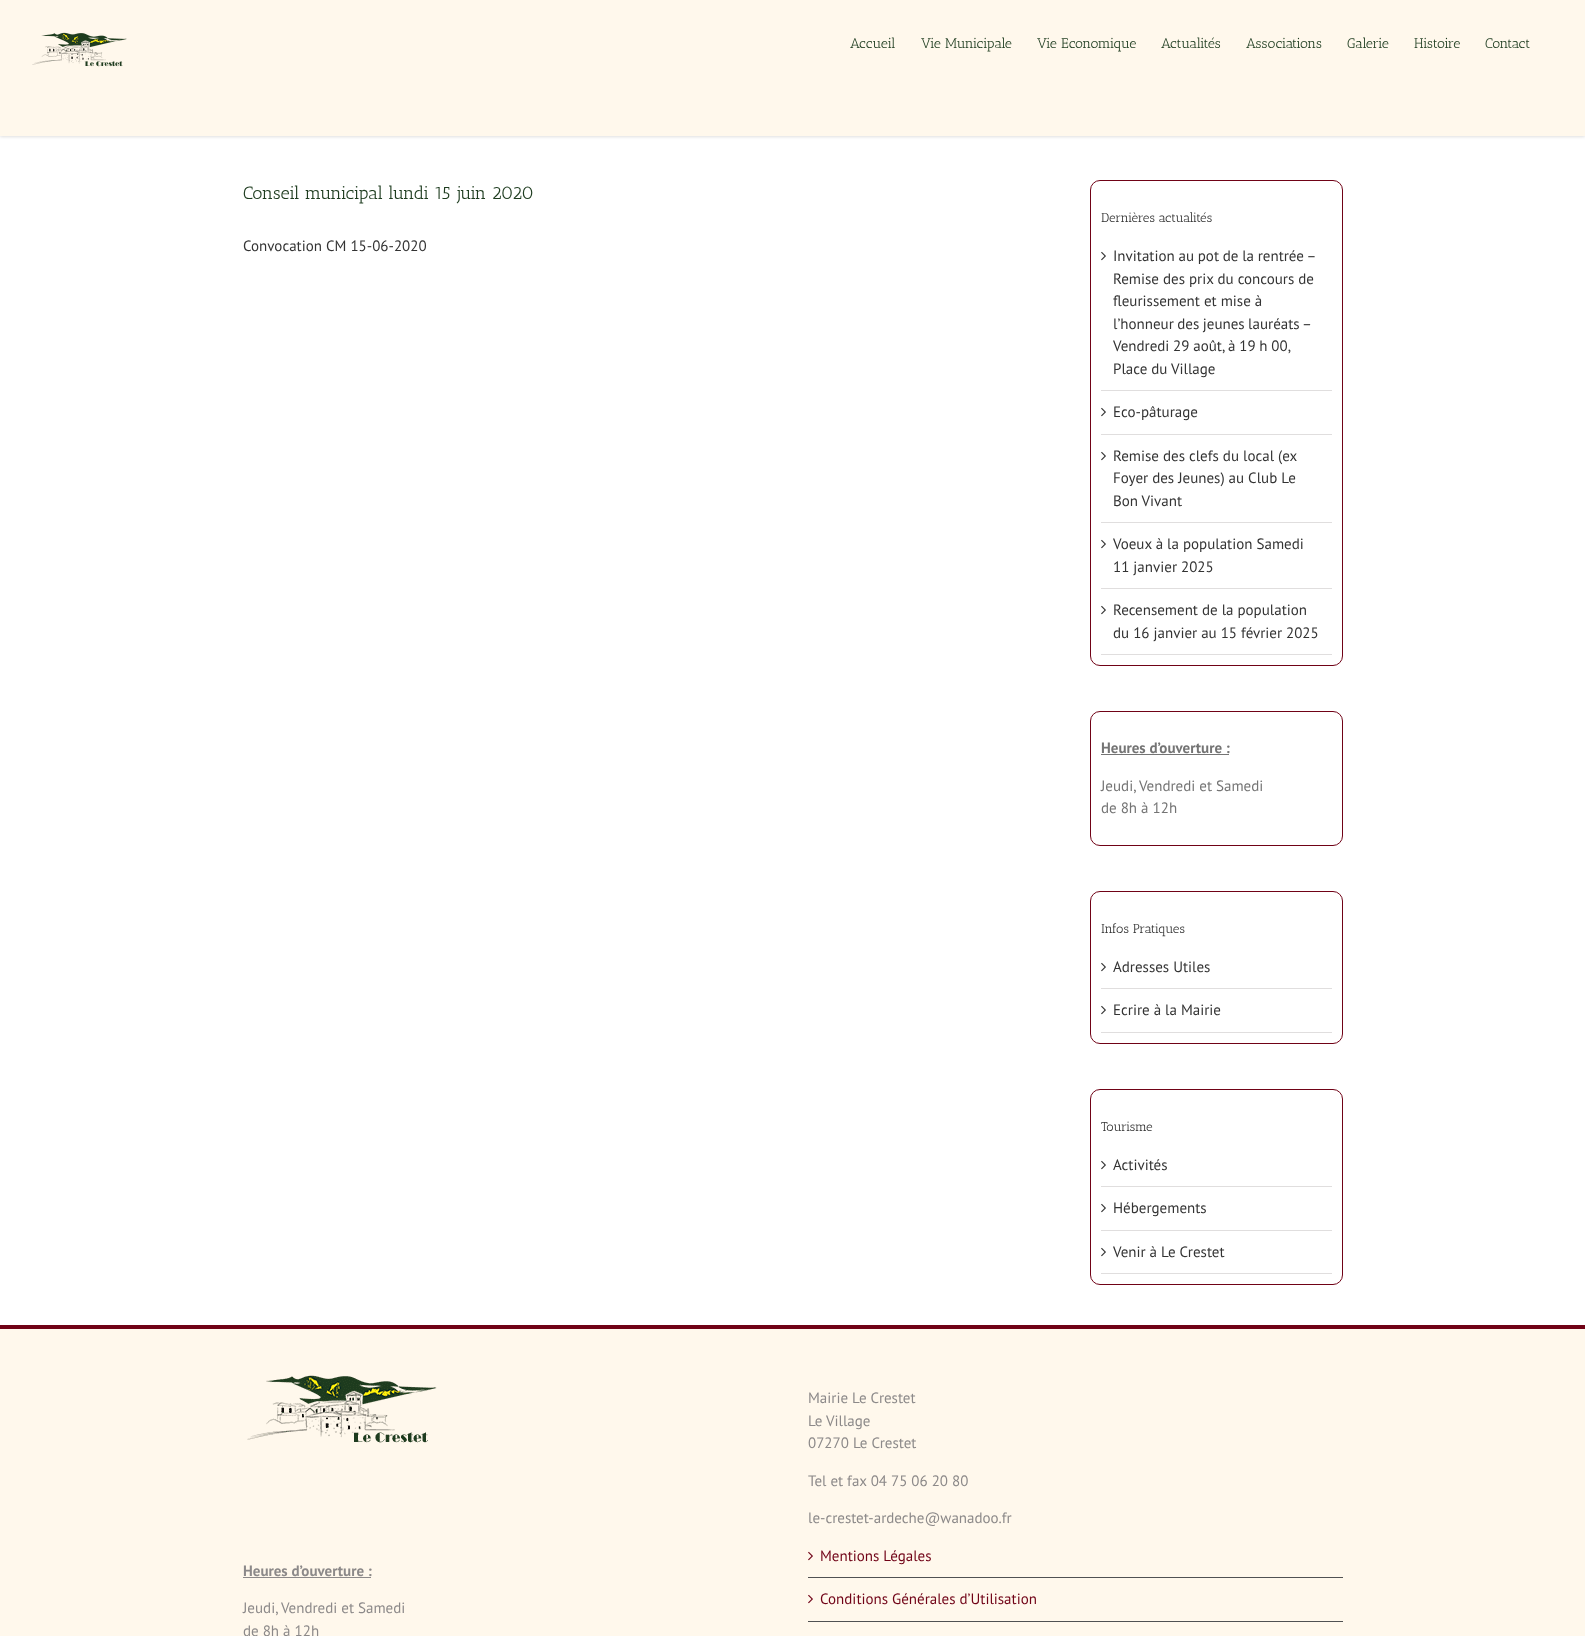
(async () => {
const canvas = document.querySelector("canvas")
canvas.width = 1585
canvas.height = 1636
const c = canvas.getContext("2d")
c.miterLimit = 4
c.fontKerning = "normal"
function T(s,x,y){c.fillText(s,x,y)}
function R(x,y,w,h){c.fillRect(x,y,w,h)}
async function I(src,x,y,w,h){const img=new Image();img.src=src;await img.decode();c.drawImage(img,x,y,w,h)}
c.fillStyle="#fff"
R(0,0,1585,1636)
c.fillStyle="#0000001f"
c.filter="blur(1.5px)"
c.beginPath()
c.rect(0,1,1585,136)
c.fill()
c.filter="none"
c.fillStyle="#fff8ec"
R(0,0,1585,136)
await I("1.png",32,32,95,35)
c.font="14px Antic Slab"
c.fillStyle="#1e3c1f"
T("Accueil",850,48)
T("Vie Municipale",921,48)
T("Vie Economique",1037,48)
T("Actualités",1161,48)
T("Associations",1246,48)
T("Galerie",1347,48)
T("Histoire",1414,48)
T("Contact",1485,48)
c.font="18px Antic Slab"
T("Conseil municipal lundi 15 juin 2020",243,199)
c.font="15px PT Sans"
c.fillStyle="#333"
T("Convocation CM 15-06-2020",243,251)
c.beginPath()
c.roundRect(1090.5,180.5,252,485,9.5)
c.strokeStyle="#700216"
c.stroke()
c.font="13px Antic Slab"
T("Dernières actualités",1101,222)
c.fillStyle="#e0dede"
R(1101,390,231,1)
await I("2.png",1101,251,5,10)
c.wordSpacing="-0.25px"
c.font="15px PT Sans"
c.fillStyle="#333"
T("Invitation au pot de la rentrée –",1113,261)
c.wordSpacing="0px"
T("Remise des prix du concours de",1113,284)
T("fleurissement et mise à",1113,306)
c.wordSpacing="-0.5px"
T("l’honneur des jeunes lauréats –",1113,329)
c.wordSpacing="-0.25px"
T("Vendredi 29 août, à 19 h 00,",1113,351)
c.wordSpacing="0px"
T("Place du Village",1113,374)
c.fillStyle="#e0dede"
R(1101,434,231,1)
await I("2.png",1101,407,5,10)
c.fillStyle="#333"
T("Eco-pâturage",1113,417)
c.fillStyle="#e0dede"
R(1101,522,231,1)
await I("2.png",1101,451,5,10)
c.fillStyle="#333"
T("Remise des clefs du local (ex",1113,461)
T("Foyer des Jeunes) au Club Le",1113,483)
T("Bon Vivant",1113,506)
c.fillStyle="#e0dede"
R(1101,588,231,1)
await I("2.png",1101,539,5,10)
c.fillStyle="#333"
T("Voeux à la population Samedi",1113,549)
T("11 janvier 2025",1113,572)
c.fillStyle="#e0dede"
R(1101,654,231,1)
await I("2.png",1101,605,5,10)
c.fillStyle="#333"
T("Recensement de la population",1113,615)
T("du 16 janvier au 15 février 2025",1113,638)
c.beginPath()
c.roundRect(1090.5,711.5,252,134,9.5)
c.stroke()
c.font="bold 15px PT Sans"
c.fillStyle="#747474"
T("Heures d’ouverture :",1101,753)
R(1101,754,128,1)
c.font="15px PT Sans"
T("Jeudi, Vendredi et Samedi",1101,791)
T("de 8h à 12h",1101,813)
c.beginPath()
c.roundRect(1090.5,891.5,252,152,9.5)
c.stroke()
c.font="13px Antic Slab"
c.fillStyle="#333"
T("Infos Pratiques",1101,933)
c.fillStyle="#e0dede"
R(1101,988,231,1)
await I("2.png",1101,962,5,10)
c.font="15px PT Sans"
c.fillStyle="#333"
T("Adresses Utiles",1113,972)
c.fillStyle="#e0dede"
R(1101,1032,231,1)
await I("2.png",1101,1005,5,10)
c.fillStyle="#333"
T("Ecrire à la Mairie",1113,1015)
c.beginPath()
c.roundRect(1090.5,1089.5,252,195,9.5)
c.stroke()
c.font="13px Antic Slab"
T("Tourisme",1101,1131)
c.fillStyle="#e0dede"
R(1101,1186,231,1)
await I("2.png",1101,1160,5,10)
c.font="15px PT Sans"
c.fillStyle="#333"
T("Activités",1113,1170)
c.fillStyle="#e0dede"
R(1101,1230,231,1)
await I("2.png",1101,1203,5,10)
c.fillStyle="#333"
T("Hébergements",1113,1213)
c.fillStyle="#e0dede"
R(1101,1273,231,1)
await I("2.png",1101,1247,5,10)
c.fillStyle="#333"
T("Venir à Le Crestet",1113,1257)
c.fillStyle="#fff8ec"
R(0,1329,1585,307)
c.fillStyle="#700216"
R(0,1325,1585,4)
await I("3.png",247,1375,190,68)
c.fillStyle="#8c8989"
T("Mairie Le Crestet",808,1403)
T("Le Village",808,1426)
T("07270 Le Crestet",808,1448)
T("Tel et fax 04 75 06 20 80",808,1486)
T("le-crestet-ardeche@wanadoo.fr",808,1523)
c.font="bold 15px PT Sans"
T("Heures d’ouverture :",243,1576)
R(243,1577,128,1)
c.font="15px PT Sans"
T("Jeudi, Vendredi et Samedi",243,1613)
T("de 8h à 12h",243,1636)
c.fillStyle="#505152"
R(808,1577,535,1)
await I("4.png",808,1551,5,10)
c.fillStyle="#700216"
T("Mentions Légales",820,1561)
c.fillStyle="#505152"
R(808,1621,535,1)
await I("4.png",808,1594,5,10)
c.fillStyle="#700216"
T("Conditions Générales d’Utilisation",820,1604)
})()
